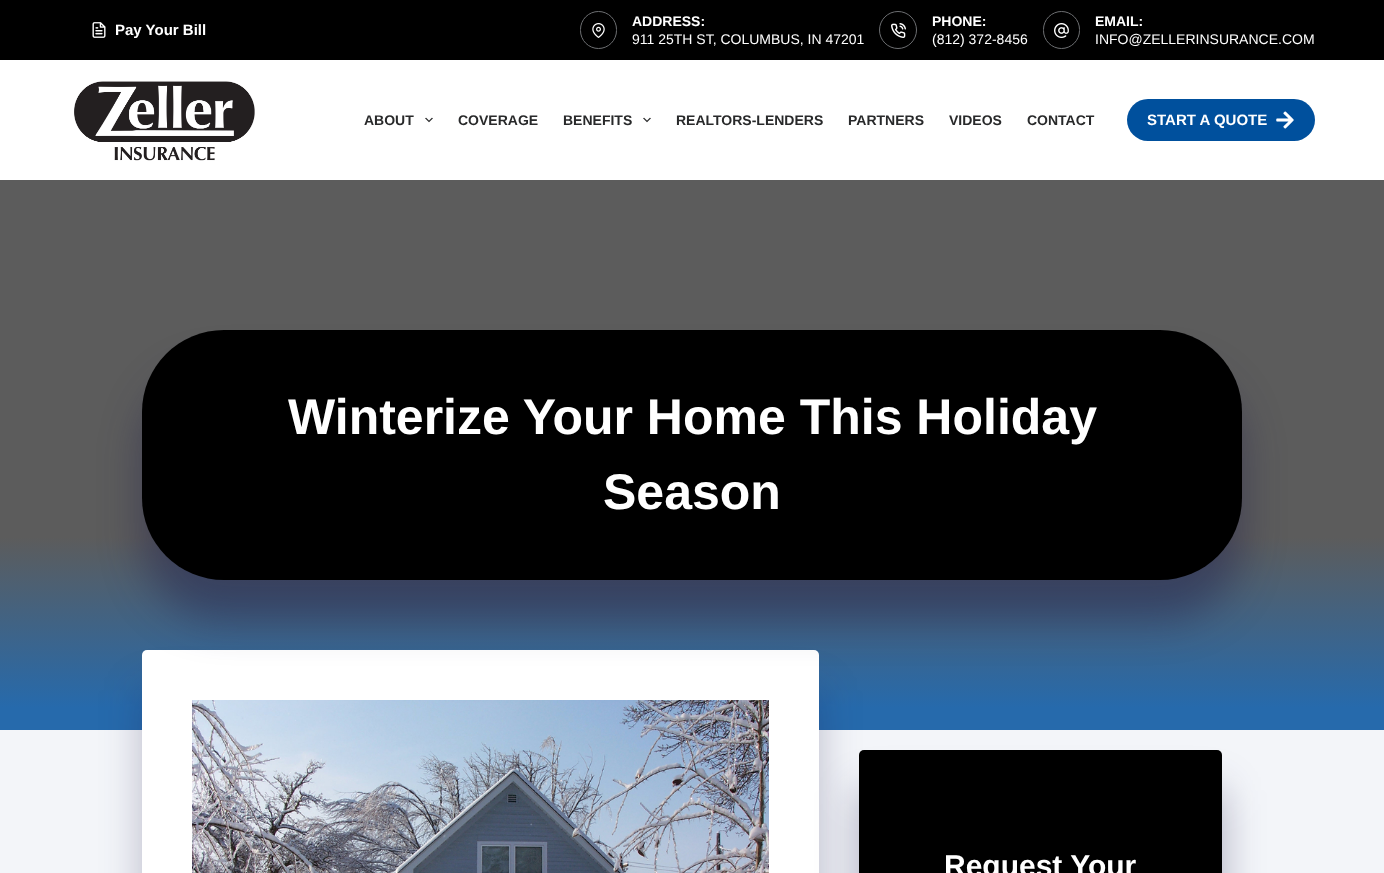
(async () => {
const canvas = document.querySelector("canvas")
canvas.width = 1384
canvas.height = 873
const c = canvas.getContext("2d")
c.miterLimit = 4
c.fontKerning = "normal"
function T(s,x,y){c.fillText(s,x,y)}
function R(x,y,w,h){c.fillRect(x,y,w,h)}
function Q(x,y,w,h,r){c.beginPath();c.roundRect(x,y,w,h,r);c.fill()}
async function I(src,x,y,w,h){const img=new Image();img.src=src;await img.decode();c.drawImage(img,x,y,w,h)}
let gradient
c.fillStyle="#fff"
R(0,0,1384,873)
c.fillStyle="#000"
R(0,0,1384,60)
await I("1.png",92,22,14,16)
c.font="bold 15px Liberation Sans"
c.fillStyle="#fff"
T("Pay Your Bill",115,35)
c.beginPath()
c.roundRect(580.5,11.5,36,37,18)
c.strokeStyle="#6d6f72"
c.stroke()
await I("2.png",592,23,13,15)
c.font="bold 14px Liberation Sans"
T("ADDRESS:",632,26)
c.font="14px Liberation Sans"
T("911 25TH ST, COLUMBUS, IN 47201",632,44)
c.beginPath()
c.arc(898,30,18.5,0,7)
c.stroke()
await I("3.png",891,23,15,15)
c.font="bold 14px Liberation Sans"
T("PHONE:",932,26)
c.font="14px Liberation Sans"
T("(812) 372-8456",932,44)
c.beginPath()
c.roundRect(1043.5,11.5,36,37,18)
c.stroke()
await I("4.png",1054,23,15,15)
c.font="bold 14px Liberation Sans"
T("EMAIL:",1095,26)
c.font="14px Liberation Sans"
T("INFO@ZELLERINSURANCE.COM",1095,44)
await I("5.png",74,81,181,80)
c.font="bold 14px Liberation Sans"
c.fillStyle="#28292a"
T("ABOUT",364,125)
await I("6.png",425,117,8,6)
T("COVERAGE",458,125)
T("BENEFITS",563,125)
await I("6.png",643,117,8,6)
T("REALTORS-LENDERS",676,125)
T("PARTNERS",848,125)
T("VIDEOS",949,125)
T("CONTACT",1027,125)
c.fillStyle="#00509d"
Q(1127,99,188,42,21)
c.font="bold 15px Liberation Sans"
c.fillStyle="#fff"
T("START A QUOTE",1147,125)
await I("7.png",1276,111,18,18)
gradient = c.createLinearGradient(692,180,692,730)
gradient.addColorStop(.65,"#5c5c5c")
gradient.addColorStop(.96,"#266aac")
c.fillStyle = gradient
R(0,180,1384,550)
c.fillStyle="#f3f5f9"
R(0,730,1384,143)
c.fillStyle="#1c194945"
c.filter="blur(20px)"
c.beginPath()
c.roundRect(142,690,677,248,5)
c.fill()
c.filter="none"
c.fillStyle="#fff"
Q(142,650,677,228,5)
c.fillStyle="#1c19496e"
c.filter="blur(20px)"
c.beginPath()
c.roundRect(142,370,1100,250,82)
c.fill()
c.filter="none"
c.fillStyle="#000"
Q(142,330,1100,250,82)
c.font="bold 50px Liberation Sans"
c.fillStyle="#fff"
T("Winterize Your Home This Holiday",288,434)
T("Season",603,509)
await I("8.png",192,700,577,173)
c.fillStyle="#1c194954"
c.filter="blur(20px)"
c.beginPath()
c.roundRect(859,790,363,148,5)
c.fill()
c.filter="none"
c.fillStyle="#000"
Q(859,750,363,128,5)
c.font="bold 30px Liberation Sans"
c.fillStyle="#fff"
T("Request Your",944,876)
})()
